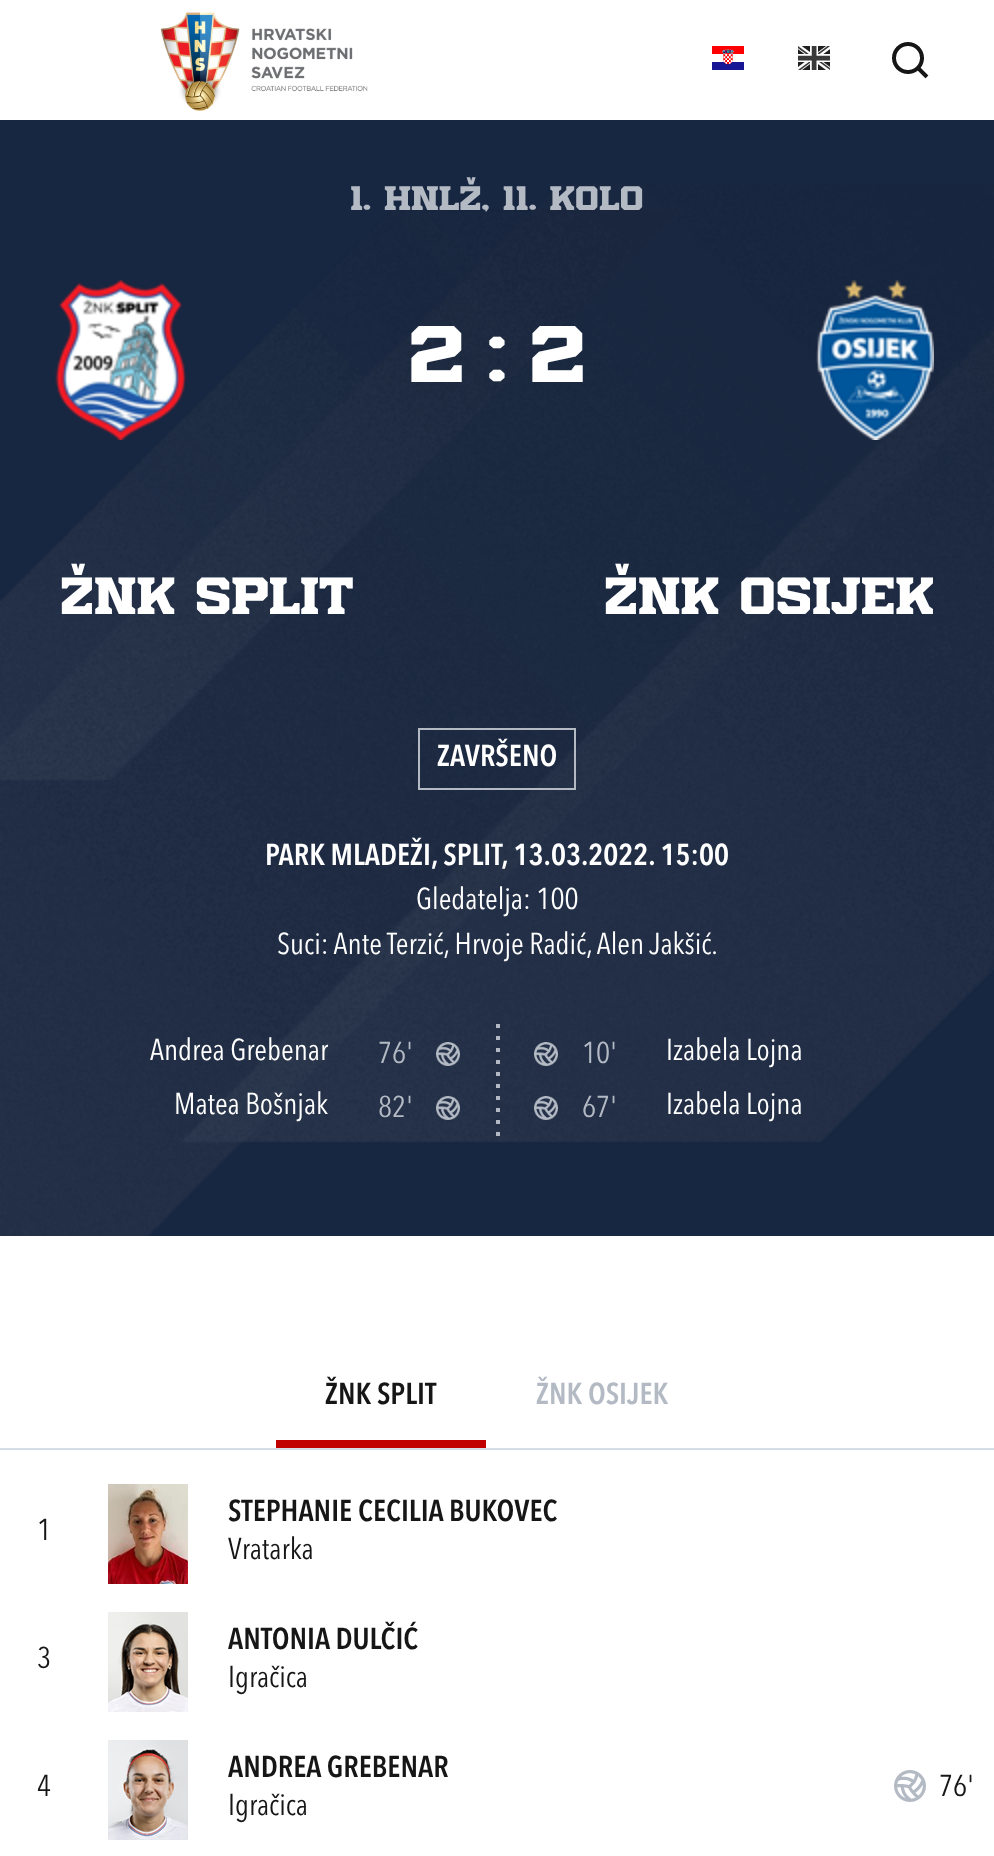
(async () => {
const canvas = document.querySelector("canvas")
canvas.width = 994
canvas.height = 1856
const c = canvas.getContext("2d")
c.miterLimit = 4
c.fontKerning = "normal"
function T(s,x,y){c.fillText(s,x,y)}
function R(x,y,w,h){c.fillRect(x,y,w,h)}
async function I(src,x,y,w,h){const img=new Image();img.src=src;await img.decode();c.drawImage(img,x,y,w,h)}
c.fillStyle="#fff"
R(0,0,994,1856)
await I("1.png",160,12,208,99)
await I("2.png",712,46,32,24)
await I("3.png",798,46,32,24)
await I("4.png",892,42,37,37)
c.fillStyle="#172641"
R(0,120,994,1116)
await I("12.png",0,184,994,1052)
c.font="34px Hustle"
c.fillStyle="#b3bac4"
T("1. HNLŽ, 11. kolo",350,210)
c.font="80px Hustle"
c.fillStyle="#fff"
T("2",408,382)
T(":",487,382)
T("2",529,382)
await I("5.png",55,280,132,160)
c.font="52px Hustle"
T("ŽNK Split",60,614)
await I("6.png",816,280,118,160)
T("ŽNK Osijek",604,614)
c.strokeStyle="#b3bac4"
c.lineWidth=2
c.strokeRect(419,729,156,60)
c.font="600 30px Avenir Next"
T("ZAVRŠENO",437,766)
T("PARK MLADEŽI, SPLIT, 13.03.2022. 15:00",265,865)
c.font="30px Avenir Next"
T("Gledatelja: 100",416,909)
T("Suci: Ante Terzić, Hrvoje Radić, Alen Jakšić.",277,954)
T("Andrea Grebenar",150,1060)
c.fillStyle="#b3bac4"
T("76'",378,1063)
await I("7.png",436,1042,24,24)
c.fillStyle="#fff"
T("Matea Bošnjak",174,1114)
c.fillStyle="#b3bac4"
T("82'",378,1117)
await I("8.png",436,1096,24,24)
await I("9.png",496,1024,4,112)
await I("10.png",534,1042,24,24)
T("10'",582,1063)
c.fillStyle="#fff"
T("Izabela Lojna",666,1060)
await I("11.png",534,1096,24,24)
c.fillStyle="#b3bac4"
T("67'",582,1117)
c.fillStyle="#fff"
T("Izabela Lojna",666,1114)
c.fillStyle="#d4dce6"
R(0,1448,994,2)
c.fillStyle="#c10000"
R(276,1440,210,8)
c.font="600 30px Avenir Next"
c.fillStyle="#161616"
T("ŽNK SPLIT",325,1404)
c.fillStyle="#b3bac4"
T("ŽNK OSIJEK",536,1404)
c.font="30px Avenir Next"
c.fillStyle="#161616"
T("1",37,1540)
await I("13.png",108,1484,80,100)
c.font="600 30px Avenir Next"
T("STEPHANIE CECILIA BUKOVEC",228,1521)
c.font="30px Avenir Next"
T("Vratarka",228,1559)
T("3",37,1668)
await I("14.png",108,1612,80,100)
c.font="600 30px Avenir Next"
T("ANTONIA DULČIĆ",228,1649)
c.font="30px Avenir Next"
T("Igračica",228,1687)
T("4",37,1796)
await I("15.png",108,1740,80,100)
c.font="600 30px Avenir Next"
T("ANDREA GREBENAR",228,1777)
c.font="30px Avenir Next"
T("Igračica",228,1815)
await I("16.png",894,1770,32,32)
T("76'",939,1796)
})()
